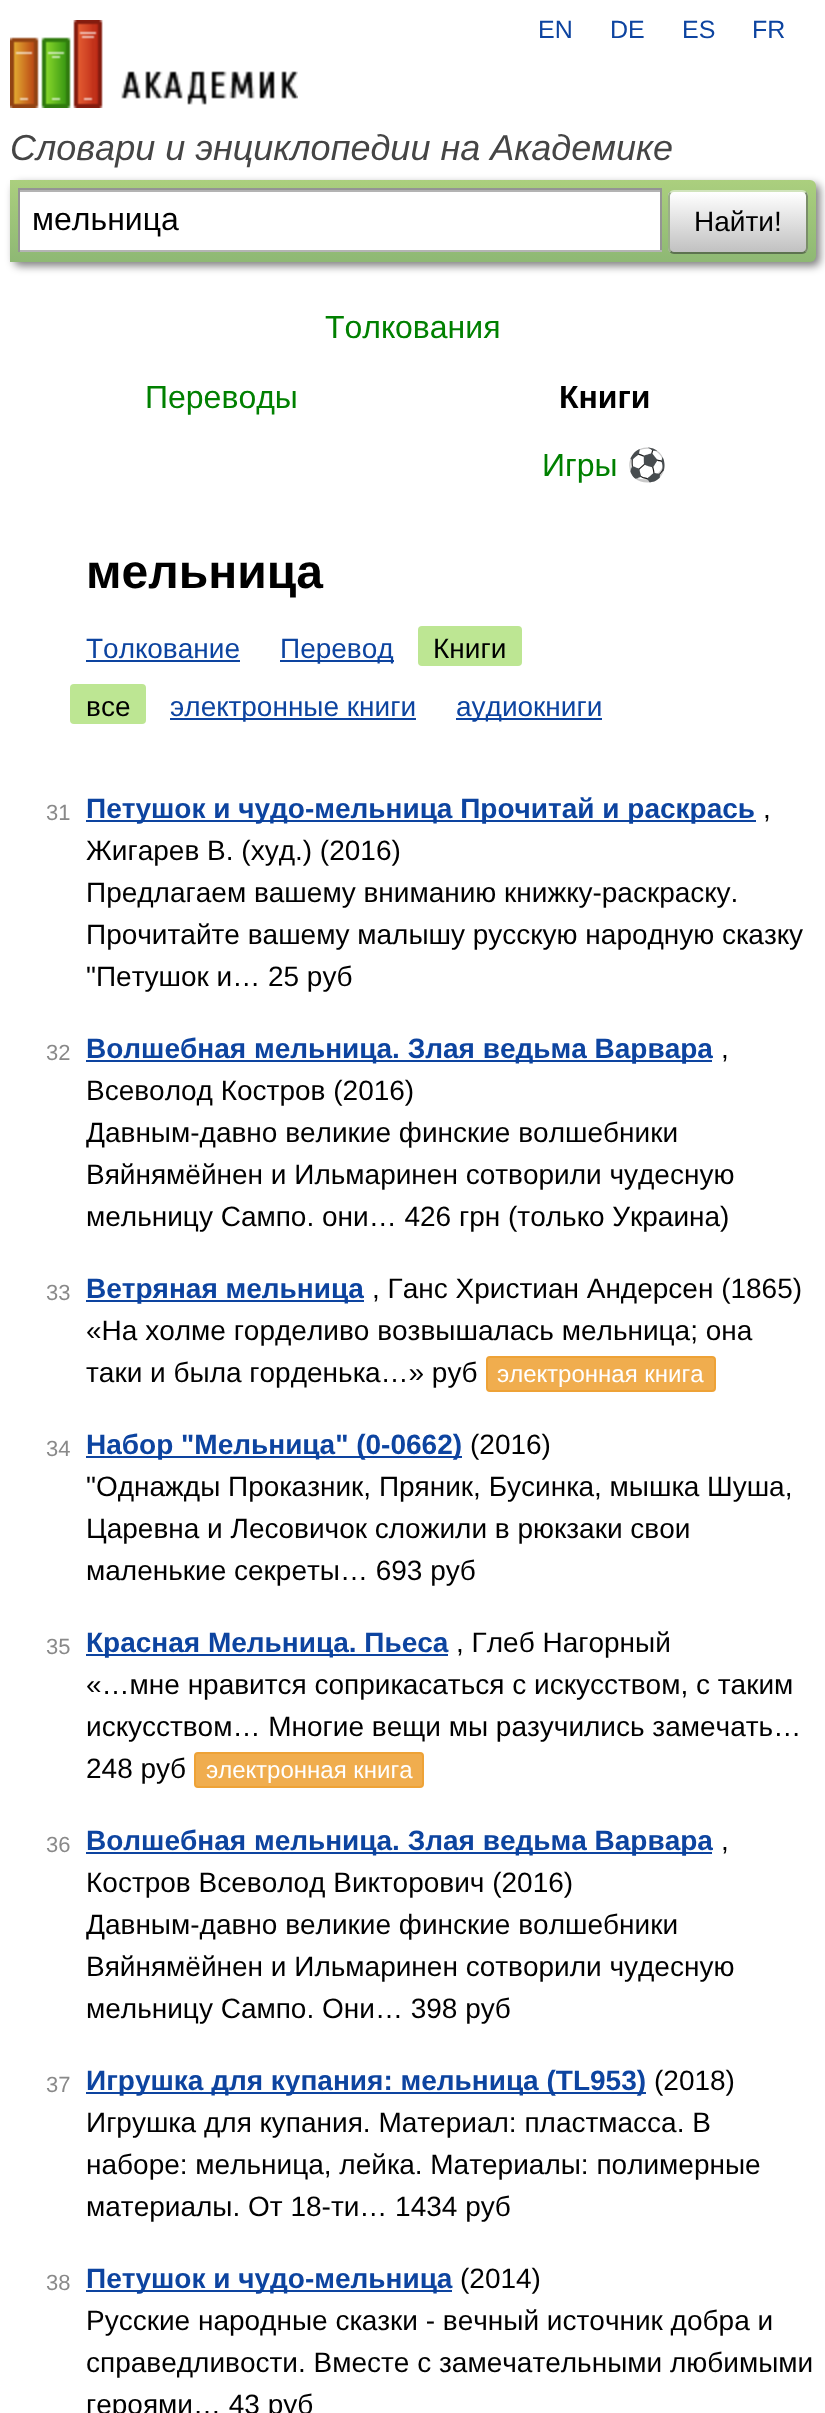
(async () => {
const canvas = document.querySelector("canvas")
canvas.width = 825
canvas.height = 2413
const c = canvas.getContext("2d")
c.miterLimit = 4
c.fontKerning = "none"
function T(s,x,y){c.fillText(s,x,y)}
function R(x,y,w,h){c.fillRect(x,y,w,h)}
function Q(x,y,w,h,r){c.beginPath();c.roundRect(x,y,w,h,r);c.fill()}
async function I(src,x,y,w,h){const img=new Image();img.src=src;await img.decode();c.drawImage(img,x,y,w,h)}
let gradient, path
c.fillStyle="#fff"
R(0,0,825,2413)
await I("1.png",10,20,288,88)
c.font="25px Liberation Sans"
c.fillStyle="#0d44a0"
T("EN",538,38)
T("DE",610,38)
T("ES",682,38)
T("FR",752,38)
c.font="italic 36px Liberation Sans"
c.fillStyle="#454545"
T("Словари и энциклопедии на Академике",10,160)
c.fillStyle="#00000080"
c.filter="blur(4px)"
c.beginPath()
c.roundRect(14,184,806,82,6)
c.fill()
c.filter="none"
gradient = c.createLinearGradient(413,180,413,262)
gradient.addColorStop(0,"#abcf7e")
gradient.addColorStop(1,"#8eb874")
c.fillStyle = gradient
c.beginPath()
c.roundRect(10,180,806,82,[0,6,6,0])
c.fill()
c.fillStyle="#fff"
R(20,192,640,58)
c.fillStyle="#b3b3b3"
R(20,190,640,2)
c.fillStyle="#949494"
R(18,188,644,2)
R(660,188,2,64)
c.fillStyle="#b4b4b4"
R(18,250,644,2)
c.fillStyle="#949494"
R(18,188,2,64)
c.font="32px Liberation Sans"
c.fillStyle="#000"
T("мельница",32,230)
c.save()
c.beginPath()
c.roundRect(668,190,140,64,6)
c.clip()
gradient = c.createLinearGradient(738,192,738,252)
gradient.addColorStop(0,"#fff")
gradient.addColorStop(1,"#c1c1c1")
c.fillStyle = gradient
R(668,192,140,60)
c.restore()
path = new Path2D("M670.5 192.5c1-1 2-1.5 3.5-1.5h128c1.5 0 2.5 .5 3.5 1.5")
c.strokeStyle="#d1e4bc"
c.lineWidth=2
c.stroke(path)
path = new Path2D("M805.5 192.5c1 1 1.5 2 1.5 3.5v52c0 1.5-.5 2.5-1.5 3.5")
c.strokeStyle="#7a8e69"
c.stroke(path)
path = new Path2D("M805.5 251.5c-1 1-2 1.5-3.5 1.5h-128c-1.5 0-2.5-.5-3.5-1.5")
c.strokeStyle="#5d7250"
c.stroke(path)
path = new Path2D("M670.5 251.5c-1-1-1.5-2-1.5-3.5v-52c0-1.5 .5-2.5 1.5-3.5")
c.strokeStyle="#9aae89"
c.stroke(path)
c.font="28px Liberation Sans"
T("Найти!",694,231)
c.font="32px Liberation Sans"
c.fillStyle="#008000"
T("Толкования",325,338)
T("Переводы",145,408)
c.font="bold 32px Liberation Sans"
c.fillStyle="#000"
T("Книги",559,408)
c.font="32px Liberation Sans"
c.fillStyle="#008000"
T("Игры",542,476)
c.font="32px Noto Color Emoji"
T("⚽",627,476)
c.font="bold 48px Liberation Sans"
c.fillStyle="#000"
T("мельница",86,588)
c.font="28px Liberation Sans"
c.fillStyle="#0d44a0"
T("Толкование",86,658)
R(86,660,154,2)
R(280,660,114,2)
T("Перевод",280,658)
c.fillStyle="#bde693"
Q(418,626,104,40,4)
c.fillStyle="#000"
T("Книги",433,658)
c.fillStyle="#bde693"
Q(70,684,76,40,4)
c.fillStyle="#000"
T("все",86,716)
c.fillStyle="#0d44a0"
R(170,718,246,2)
T("электронные книги",170,716)
R(456,718,146,2)
T("аудиокниги",456,716)
c.font="22px Liberation Sans"
c.fillStyle="#898989"
T("31",46,820)
c.fillStyle="#0d44a0"
R(86,820,670,2)
c.font="bold 28px Liberation Sans"
T("Петушок и чудо-мельница Прочитай и раскрась",86,818)
c.font="28px Liberation Sans"
c.fillStyle="#000"
T(",",763,818)
T("Жигарев В. (худ.) (2016)",86,860)
T("Предлагаем вашему вниманию книжку-раскраску.",86,902)
T("Прочитайте вашему малышу русскую народную сказку",86,944)
T("\"Петушок и… 25 руб",86,986)
c.font="22px Liberation Sans"
c.fillStyle="#898989"
T("32",46,1060)
c.fillStyle="#0d44a0"
R(86,1060,626,2)
c.font="bold 28px Liberation Sans"
T("Волшебная мельница. Злая ведьма Варвара",86,1058)
c.font="28px Liberation Sans"
c.fillStyle="#000"
T(",",721,1058)
T("Всеволод Костров (2016)",86,1100)
T("Давным-давно великие финские волшебники",86,1142)
T("Вяйнямёйнен и Ильмаринен сотворили чудесную",86,1184)
T("мельницу Сампо. они… 426 грн (только Украина)",86,1226)
c.font="22px Liberation Sans"
c.fillStyle="#898989"
T("33",46,1300)
c.fillStyle="#0d44a0"
R(86,1300,278,2)
c.font="bold 28px Liberation Sans"
T("Ветряная мельница",86,1298)
c.font="28px Liberation Sans"
c.fillStyle="#000"
T(", Ганс Христиан Андерсен (1865)",372,1298)
T("«На холме горделиво возвышалась мельница; она",86,1340)
T("таки и была горденька…» руб",86,1382)
c.fillStyle="#f0ad4e"
c.beginPath()
c.roundRect(487,1357,228,34,3)
c.fill()
c.strokeStyle="#eea236"
c.stroke()
c.font="24px Liberation Sans"
c.fillStyle="#fff"
T("электронная книга",497,1382)
c.font="22px Liberation Sans"
c.fillStyle="#898989"
T("34",46,1456)
c.fillStyle="#0d44a0"
R(86,1456,376,2)
c.font="bold 28px Liberation Sans"
T("Набор \"Мельница\" (0-0662)",86,1454)
c.font="28px Liberation Sans"
c.fillStyle="#000"
T("(2016)",470,1454)
T("\"Однажды Проказник, Пряник, Бусинка, мышка Шуша,",86,1496)
T("Царевна и Лесовичок сложили в рюкзаки свои",86,1538)
T("маленькие секреты… 693 руб",86,1580)
c.font="22px Liberation Sans"
c.fillStyle="#898989"
T("35",46,1654)
c.fillStyle="#0d44a0"
R(86,1654,362,2)
c.font="bold 28px Liberation Sans"
T("Красная Мельница. Пьеса",86,1652)
c.font="28px Liberation Sans"
c.fillStyle="#000"
T(", Глеб Нагорный",456,1652)
T("«…мне нравится соприкасаться с искусством, с таким",86,1694)
T("искусством… Многие вещи мы разучились замечать…",86,1736)
T("248 руб",86,1778)
c.fillStyle="#f0ad4e"
c.beginPath()
c.roundRect(195,1753,228,34,3)
c.fill()
c.stroke()
c.font="24px Liberation Sans"
c.fillStyle="#fff"
T("электронная книга",206,1778)
c.font="22px Liberation Sans"
c.fillStyle="#898989"
T("36",46,1852)
c.fillStyle="#0d44a0"
R(86,1852,626,2)
c.font="bold 28px Liberation Sans"
T("Волшебная мельница. Злая ведьма Варвара",86,1850)
c.font="28px Liberation Sans"
c.fillStyle="#000"
T(",",721,1850)
T("Костров Всеволод Викторович (2016)",86,1892)
T("Давным-давно великие финские волшебники",86,1934)
T("Вяйнямёйнен и Ильмаринен сотворили чудесную",86,1976)
T("мельницу Сампо. Они… 398 руб",86,2018)
c.font="22px Liberation Sans"
c.fillStyle="#898989"
T("37",46,2092)
c.fillStyle="#0d44a0"
R(86,2092,560,2)
c.font="bold 28px Liberation Sans"
T("Игрушка для купания: мельница (TL953)",86,2090)
c.font="28px Liberation Sans"
c.fillStyle="#000"
T("(2018)",654,2090)
T("Игрушка для купания. Материал: пластмасса. В",86,2132)
T("наборе: мельница, лейка. Материалы: полимерные",86,2174)
T("материалы. От 18-ти… 1434 руб",86,2216)
c.font="22px Liberation Sans"
c.fillStyle="#898989"
T("38",46,2290)
c.fillStyle="#0d44a0"
R(86,2290,366,2)
c.font="bold 28px Liberation Sans"
T("Петушок и чудо-мельница",86,2288)
c.font="28px Liberation Sans"
c.fillStyle="#000"
T("(2014)",460,2288)
T("Русские народные сказки - вечный источник добра и",86,2330)
T("справедливости. Вместе с замечательными любимыми",86,2372)
T("героями… 43 руб",86,2414)
})()
